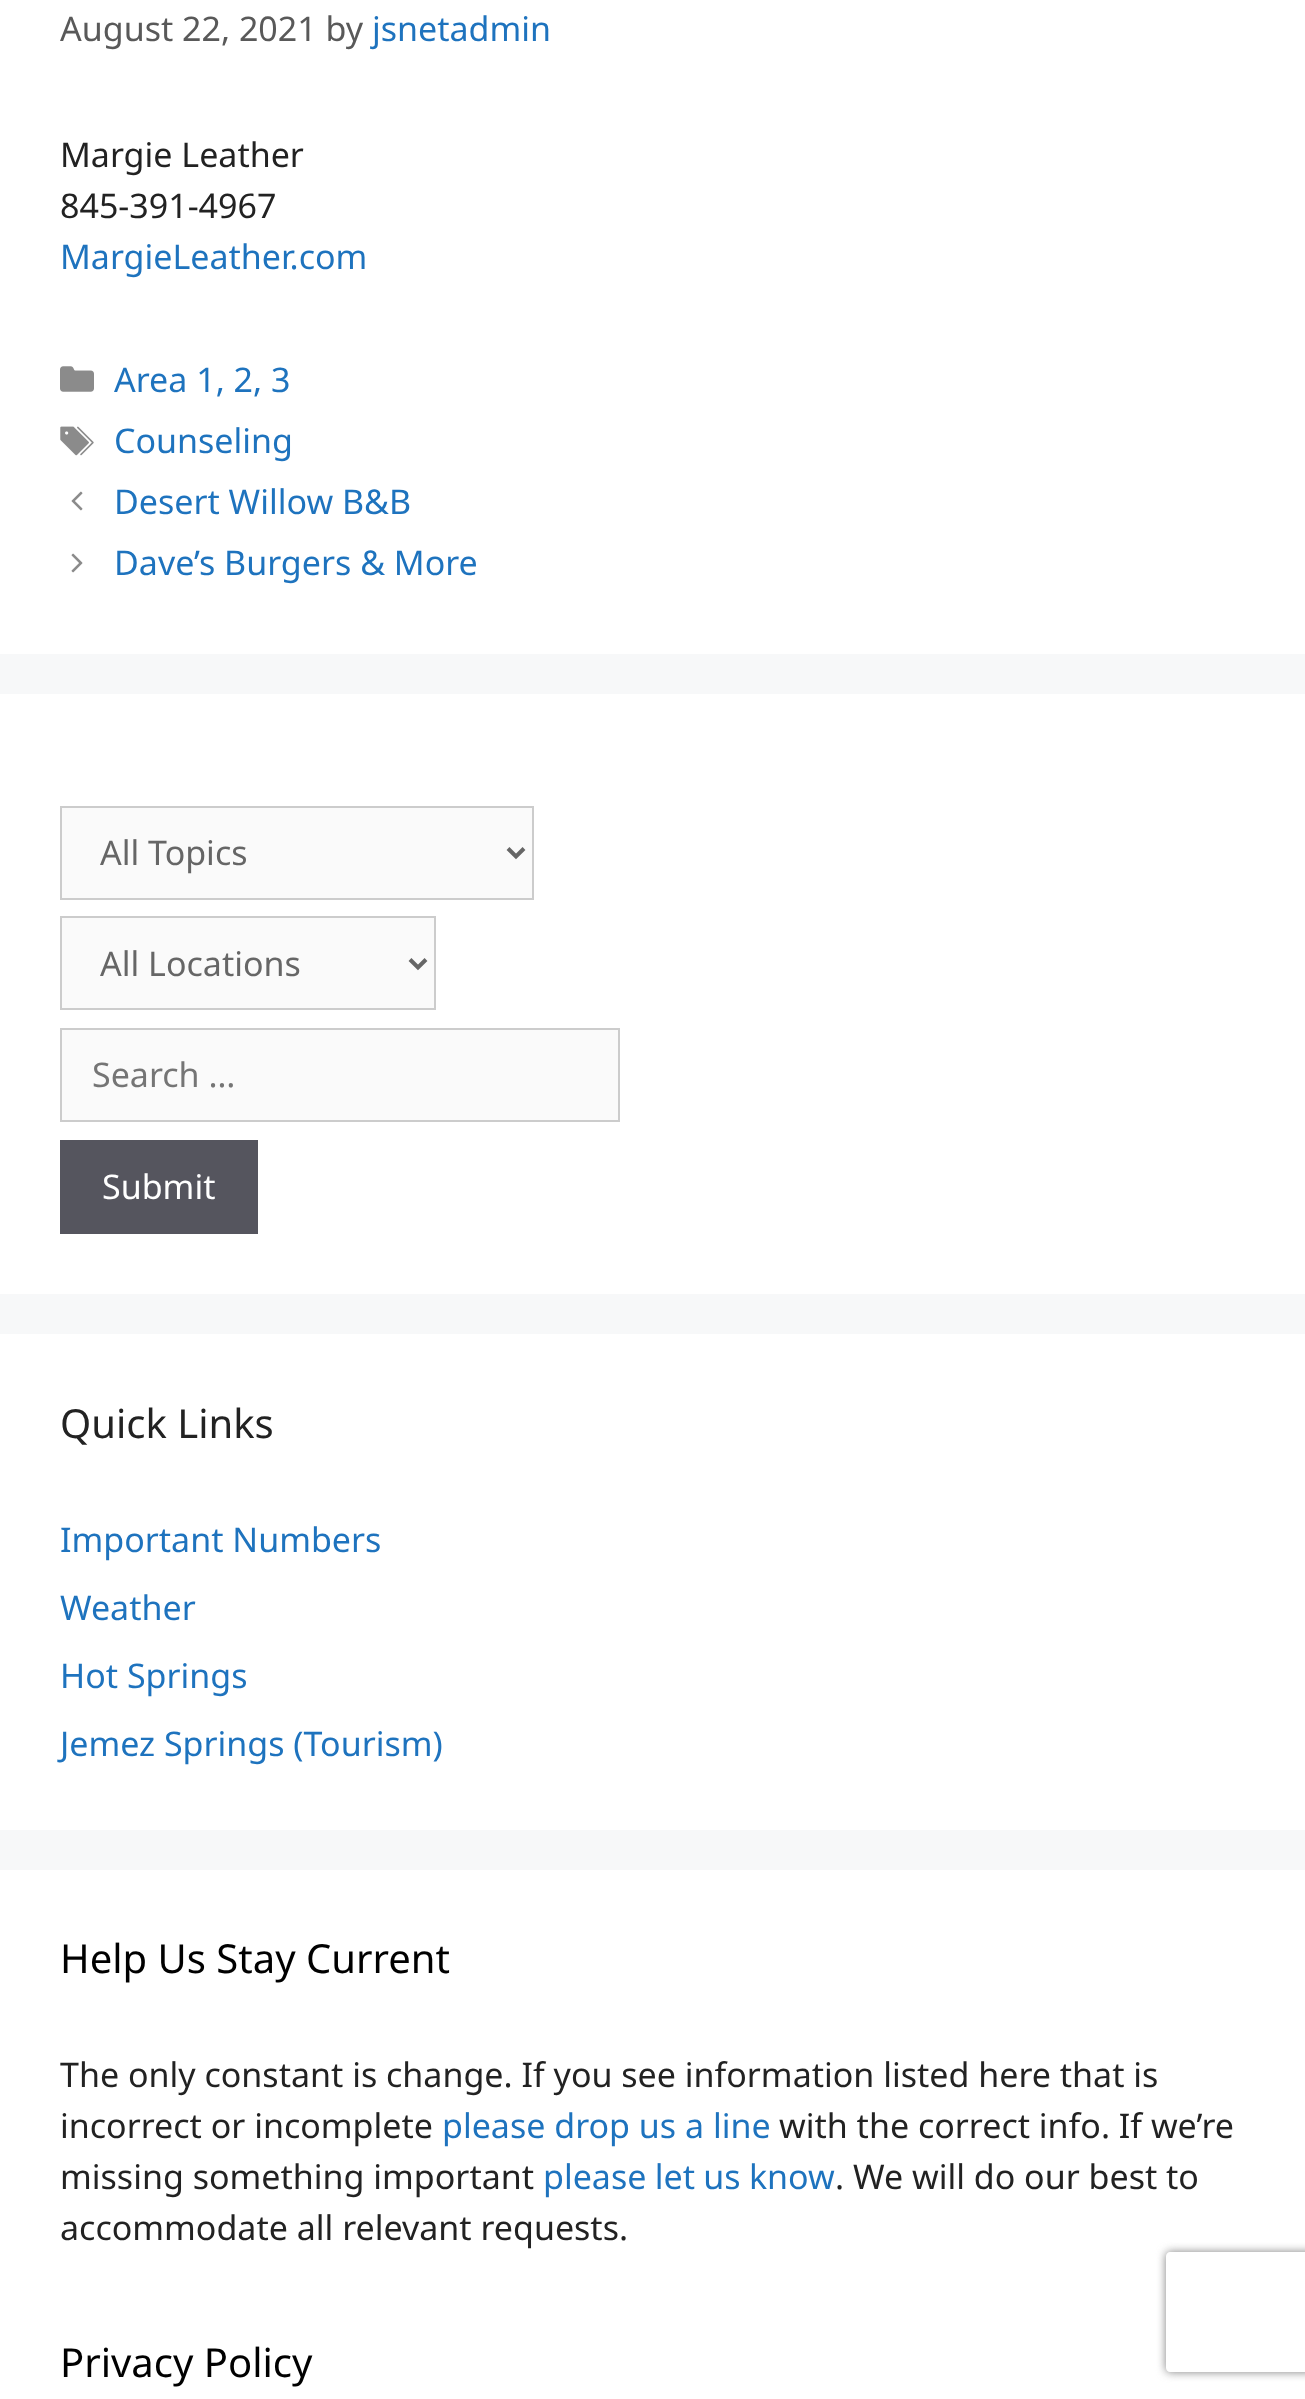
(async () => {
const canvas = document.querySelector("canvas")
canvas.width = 1305
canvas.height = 2399
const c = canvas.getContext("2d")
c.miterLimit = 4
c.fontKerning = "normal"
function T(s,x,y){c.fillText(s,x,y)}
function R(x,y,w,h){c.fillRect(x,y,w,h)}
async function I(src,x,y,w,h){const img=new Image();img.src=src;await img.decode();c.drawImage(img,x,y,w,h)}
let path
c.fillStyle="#f7f8f9"
R(0,0,1305,2399)
c.fillStyle="#fff"
R(0,0,1305,654)
c.font="34px Noto Sans"
c.fillStyle="#595959"
T("August 22, 2021 by",60,41)
c.fillStyle="#1e73be"
T("jsnetadmin",372,41)
c.fillStyle="#222"
T("Margie Leather",60,167)
T("845-391-4967",60,218)
c.fillStyle="#1e73be"
T("MargieLeather.com",60,269)
await I("1.png",60,366,34,26)
T("Area 1, 2, 3",114,392)
await I("2.png",60,426,34,30)
T("Counseling",114,453)
await I("3.png",71,491,12,20)
T("Desert Willow B&B",114,514)
await I("4.png",71,553,12,20)
T("Dave’s Burgers & More",114,575)
c.fillStyle="#fff"
R(0,694,1305,600)
c.fillStyle="#fafafa"
c.beginPath()
c.rect(61,807,472,92)
c.fill()
c.strokeStyle="#ccc"
c.lineWidth=2
c.stroke()
path = new Path2D("M508 848.5l8 8l8-8")
c.strokeStyle="#666"
c.lineWidth=4
c.stroke(path)
c.fillStyle="#666"
T("All Topics",100,865)
c.fillStyle="#fafafa"
c.beginPath()
c.rect(61,917,374,92)
c.fill()
c.strokeStyle="#ccc"
c.lineWidth=2
c.stroke()
path = new Path2D("M410 959.5l8 8l8-8")
c.strokeStyle="#666"
c.lineWidth=4
c.stroke(path)
c.fillStyle="#666"
T("All Locations",100,976)
c.fillStyle="#fafafa"
c.beginPath()
c.rect(61,1029,558,92)
c.fill()
c.strokeStyle="#ccc"
c.lineWidth=2
c.stroke()
c.fillStyle="#757575"
T("Search …",92,1087)
c.fillStyle="#55555e"
R(60,1140,198,94)
c.fillStyle="#fff"
T("Submit",102,1199)
R(0,1334,1305,496)
c.font="40px Noto Sans"
c.fillStyle="#222"
T("Quick Links",60,1438)
c.font="34px Noto Sans"
c.fillStyle="#1e73be"
T("Important Numbers",60,1552)
T("Weather",60,1620)
T("Hot Springs",60,1688)
T("Jemez Springs (Tourism)",60,1756)
c.fillStyle="#fff"
R(0,1870,1305,529)
c.font="40px Noto Sans"
c.fillStyle="#000"
T("Help Us Stay Current",60,1973)
c.font="34px Noto Sans"
c.fillStyle="#222"
T("The only constant is change. If you see information listed here that is",60,2087)
T("incorrect or incomplete",60,2138)
c.fillStyle="#1e73be"
T("please drop us a line",442,2138)
c.fillStyle="#222"
T("with the correct info. If we’re",779,2138)
T("missing something important",60,2189)
c.wordSpacing="-0.5px"
c.fillStyle="#1e73be"
T("please let us know",543,2189)
c.wordSpacing="0px"
c.fillStyle="#222"
T(". We will do our best to",835,2189)
T("accommodate all relevant requests.",60,2240)
c.font="40px Noto Sans"
c.fillStyle="#000"
T("Privacy Policy",60,2377)
c.save()
path = new Path2D("M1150 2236h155v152h-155zm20 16h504c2 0 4 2 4 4v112c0 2-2 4-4 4h-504c-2 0-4-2-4-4v-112c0-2 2-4 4-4z")
c.clip(path,"evenodd")
c.fillStyle="#808080"
c.filter="blur(5px)"
c.beginPath()
c.roundRect(1166,2252,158,120,4)
c.fill()
c.filter="none"
c.restore()
})()
